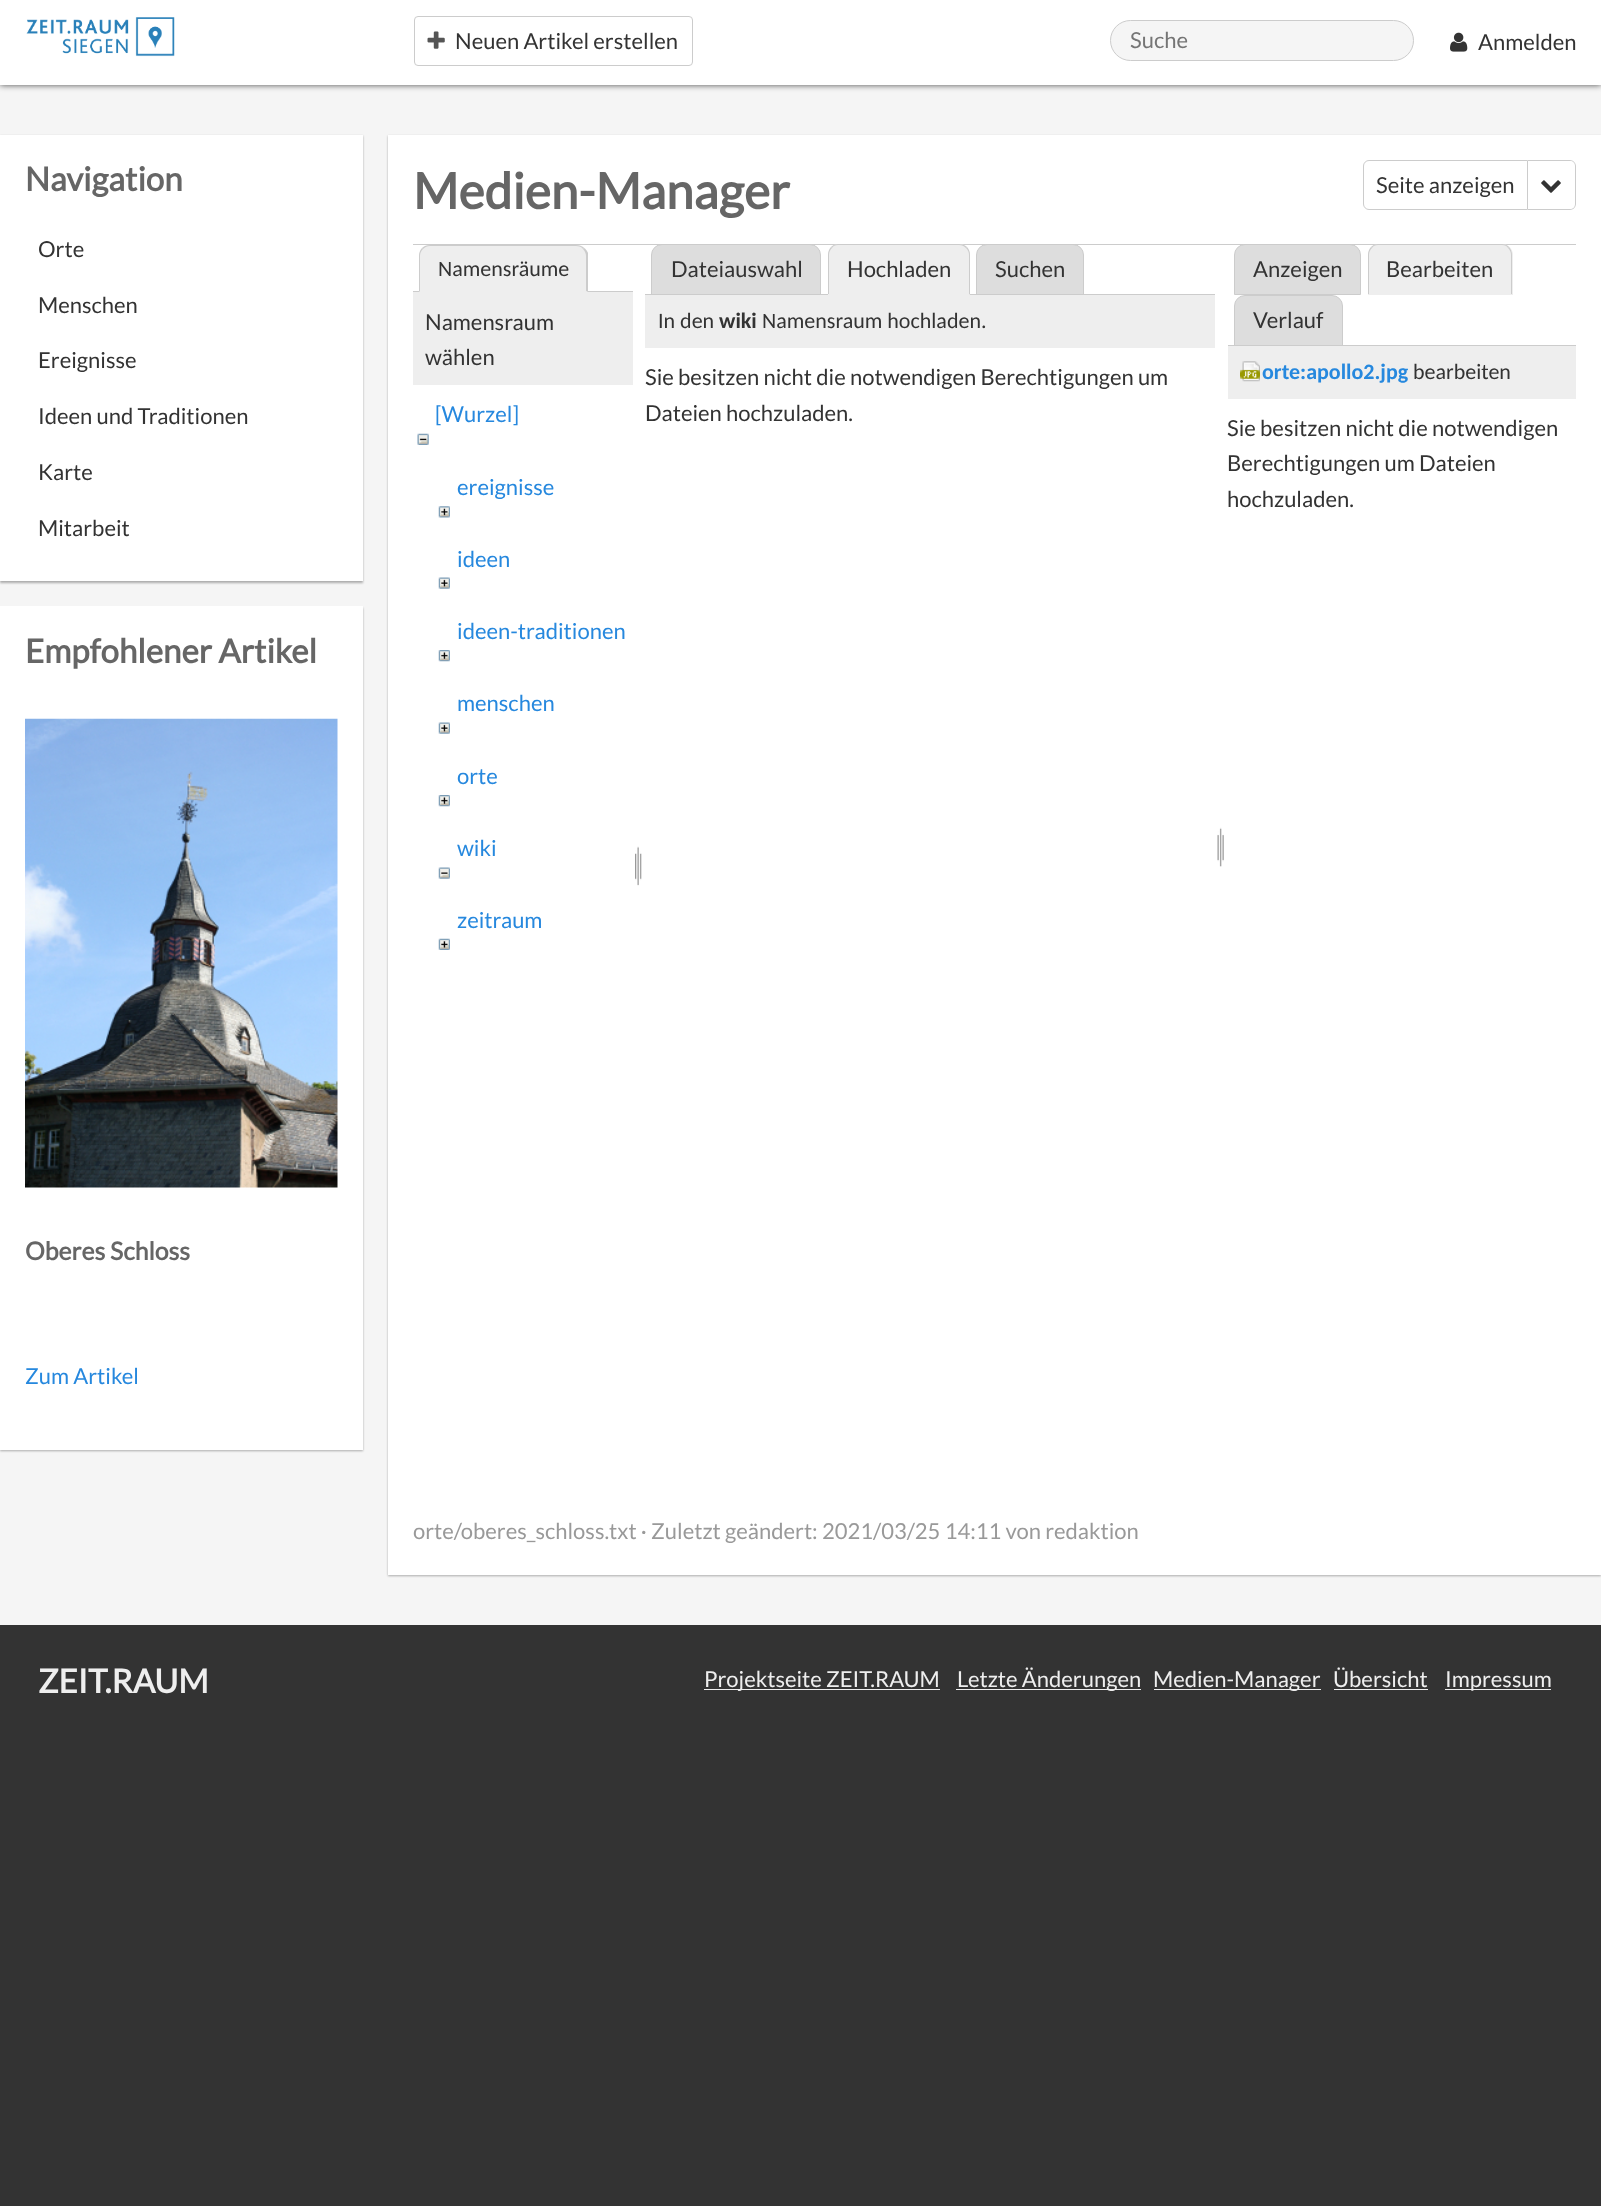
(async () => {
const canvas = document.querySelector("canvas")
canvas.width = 1601
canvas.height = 2206
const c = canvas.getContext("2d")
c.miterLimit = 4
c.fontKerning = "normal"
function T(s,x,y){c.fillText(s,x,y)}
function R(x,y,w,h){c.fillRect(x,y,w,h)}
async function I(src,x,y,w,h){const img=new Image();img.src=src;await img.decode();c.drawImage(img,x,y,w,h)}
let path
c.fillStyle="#333"
R(0,0,1601,2206)
c.fillStyle="#f5f5f5"
R(0,85,1601,1540)
c.fillStyle="#000000b3"
c.filter="blur(3px)"
c.beginPath()
c.rect(0,0,1601,85)
c.fill()
c.filter="none"
c.fillStyle="#fff"
R(0,0,1601,85)
await I("1.png",26,17,149,40)
c.beginPath()
c.roundRect(414.5,16.5,278,49,3.5)
c.strokeStyle="#ccc"
c.stroke()
await I("2.png",427,31,18,18)
c.font="22px Lato"
c.fillStyle="#333"
T("Neuen Artikel erstellen",455,49)
c.fillStyle="#f5f5f5"
c.beginPath()
c.roundRect(1110.5,20.5,303,40,20)
c.fill()
c.stroke()
c.fillStyle="#757575"
T("Suche",1130,48)
await I("3.png",1450,32,18,20)
c.fillStyle="#333"
T("Anmelden",1478,50)
c.fillStyle="#0000004d"
c.filter="blur(1px)"
c.beginPath()
c.rect(0,136,363,447)
c.fill()
c.filter="none"
c.fillStyle="#fff"
R(0,135,363,446)
c.font="bold 33px Lato"
c.fillStyle="#666"
T("Navigation",25,191)
c.font="22px Lato"
c.fillStyle="#333"
T("Orte",38,257)
T("Menschen",38,313)
T("Ereignisse",38,368)
T("Ideen und Traditionen",38,424)
T("Karte",38,480)
T("Mitarbeit",38,536)
c.fillStyle="#0000004d"
c.filter="blur(1px)"
c.beginPath()
c.rect(0,608,363,843)
c.fill()
c.filter="none"
c.fillStyle="#fff"
R(0,606,363,844)
c.font="bold 33px Lato"
c.fillStyle="#666"
T("Empfohlener Artikel",25,663)
await I("4.png",25,718,313,470)
c.font="bold 24.75px Lato"
T("Oberes Schloss",25,1260)
c.font="22px Lato"
c.fillStyle="#2688de"
T("Zum Artikel",25,1384)
c.fillStyle="#0000004d"
c.filter="blur(1px)"
c.beginPath()
c.rect(388,136,1213,1440)
c.fill()
c.filter="none"
c.fillStyle="#fff"
R(388,135,1213,1440)
c.font="bold 49.5px Lato"
c.fillStyle="#666"
T("Medien-Manager",413,209)
c.fillStyle="#eee"
R(413,292,220,93)
c.fillStyle="#ccc"
R(413,291,220,1)
c.fillStyle="#eee"
c.beginPath()
c.roundRect(419,245,169,48,[11,11,0,0])
c.fill()
c.fillStyle="#ccc"
path = new Path2D("M430 245c-3 0-6 1-8 3l1 1c2-2 4-3 7-3h146c3 0 6 1 7 3l1-1c-2-2-5-3-8-3z")
c.fill(path)
path = new Path2D("M588 292l-2-1v-35c0-2-1-5-3-7l1-1c2 1 3 3 4 5z")
c.fill(path)
c.fillStyle="#eee"
path = new Path2D("M587 292h-168l1-1h166z")
c.fill(path)
c.fillStyle="#ccc"
path = new Path2D("M422 248c-2 2-3 5-3 8v36l1-1v-35c0-3 1-5 3-7z")
c.fill(path)
c.font="22px Carlito"
c.fillStyle="#333"
T("Namensräume",438,276)
c.font="22px Lato"
T("Namensraum",425,330)
T("wählen",425,365)
c.fillStyle="#2688de"
T("[Wurzel]",435,422)
await I("5.png",417,433,12,12)
T("ereignisse",457,495)
await I("6.png",438,506,12,12)
T("ideen",457,567)
await I("7.png",438,577,12,12)
T("ideen-traditionen",457,639)
await I("8.png",438,650,12,12)
T("menschen",457,711)
await I("7.png",438,722,12,12)
T("orte",457,784)
await I("8.png",438,795,12,12)
T("wiki",457,856)
await I("9.png",438,867,12,12)
T("zeitraum",457,928)
await I("10.png",438,938,12,12)
await I("11.png",635,846,7,40)
c.fillStyle="#ccc"
R(413,244,1163,1)
c.fillStyle="#ddd"
c.beginPath()
c.roundRect(651.5,244.5,169,50,[10.5,10.5,0,0])
c.fill()
c.stroke()
c.fillStyle="#333"
T("Dateiauswahl",671,277)
c.fillStyle="#ddd"
c.beginPath()
c.roundRect(976.5,244.5,107,50,[10.5,10.5,0,0])
c.fill()
c.stroke()
c.fillStyle="#ccc"
R(645,294,570,1)
c.fillStyle="#eee"
c.beginPath()
c.roundRect(828,244,142,51,[11,11,0,0])
c.fill()
c.fillStyle="#ccc"
path = new Path2D("M838 244c-3 0-5 1-7 3l1 1c1-2 3-3 6-3h121c3 0 5 1 7 3l1-1c-2-2-5-3-8-3z")
c.fill(path)
path = new Path2D("M967 247c2 2 3 5 3 8v40l-1-1v-39c0-3-1-5-3-7z")
c.fill(path)
c.fillStyle="#eee"
path = new Path2D("M970 295l-1-1h-140l-1 1z")
c.fill(path)
c.fillStyle="#ccc"
path = new Path2D("M831 247c-2 2-3 5-3 8v39h1v-39c0-3 1-5 3-7z")
c.fill(path)
c.fillStyle="#333"
T("Hochladen",847,277)
T("Suchen",995,277)
c.fillStyle="#eee"
R(645,295,570,53)
c.font="22px Carlito"
c.fillStyle="#333"
T("In den",658,328)
c.font="bold 22px Carlito"
T("wiki",719,328)
c.font="22px Carlito"
T("Namensraum hochladen.",762,328)
c.font="22px Lato"
T("Sie besitzen nicht die notwendigen Berechtigungen um",645,385)
T("Dateien hochzuladen.",645,421)
await I("12.png",1217,827,7,40)
c.fillStyle="#ddd"
c.beginPath()
c.roundRect(1234.5,244.5,126,50,[10.5,10.5,0,0])
c.fill()
c.stroke()
c.fillStyle="#333"
T("Anzeigen",1253,277)
c.fillStyle="#eee"
c.beginPath()
c.roundRect(1368,244,145,51,[11,11,0,0])
c.fill()
c.fillStyle="#ccc"
path = new Path2D("M1378 244c-3 0-5 1-7 3l1 1c1-2 3-3 6-3h124c3 0 5 1 6 3l1-1c-2-2-4-3-7-3z")
c.fill(path)
path = new Path2D("M1512 294v-39c0-3-1-6-3-8l-1 1c2 2 3 4 3 7v39z")
c.fill(path)
path = new Path2D("M1371 247c-2 2-3 5-3 8v39h1v-39c0-3 1-5 3-7z")
c.fill(path)
c.fillStyle="#333"
T("Bearbeiten",1386,277)
c.fillStyle="#ddd"
c.beginPath()
c.roundRect(1234.5,295.5,108,50,[10.5,10.5,0,0])
c.fill()
c.stroke()
c.fillStyle="#333"
T("Verlauf",1253,328)
c.fillStyle="#ccc"
R(1228,345,348,1)
c.fillStyle="#eee"
R(1228,346,348,53)
await I("13.png",1240,361,20,21)
c.font="bold 22px Carlito"
c.fillStyle="#2688de"
T("orte:apollo2.jpg",1262,379)
c.font="22px Carlito"
c.fillStyle="#333"
T("bearbeiten",1413,379)
c.font="22px Lato"
T("Sie besitzen nicht die notwendigen",1227,436)
T("Berechtigungen um Dateien",1227,471)
T("hochzuladen.",1227,507)
c.beginPath()
c.roundRect(1363.5,160.5,164,49,[5.5,0,0,5.5])
c.stroke()
T("Seite anzeigen",1376,193)
c.fillStyle="#ccc"
path = new Path2D("M1528 160h42c3 0 6 3 6 6v38c0 3-3 6-6 6h-42zm0 1h42c3 0 5 2 5 5v38c0 3-2 5-5 5h-42z")
c.fill(path,"evenodd")
await I("14.png",1541,180,20,13)
c.fillStyle="#999"
T("orte/oberes_schloss.txt · Zuletzt geändert: 2021/03/25 14:11 von redaktion",413,1539)
c.font="bold 33px Lato"
c.fillStyle="#eee"
T("ZEIT.RAUM",38,1693)
R(704,1689,236,1)
c.font="22px Lato"
T("Projektseite ZEIT.RAUM",704,1687)
R(956,1689,185,1)
T("Letzte Änderungen",957,1687)
R(1154,1689,167,1)
T("Medien-Manager",1153,1687)
T("Übersicht",1333,1687)
R(1334,1689,94,1)
R(1445,1689,106,1)
T("Impressum",1445,1687)
})()
